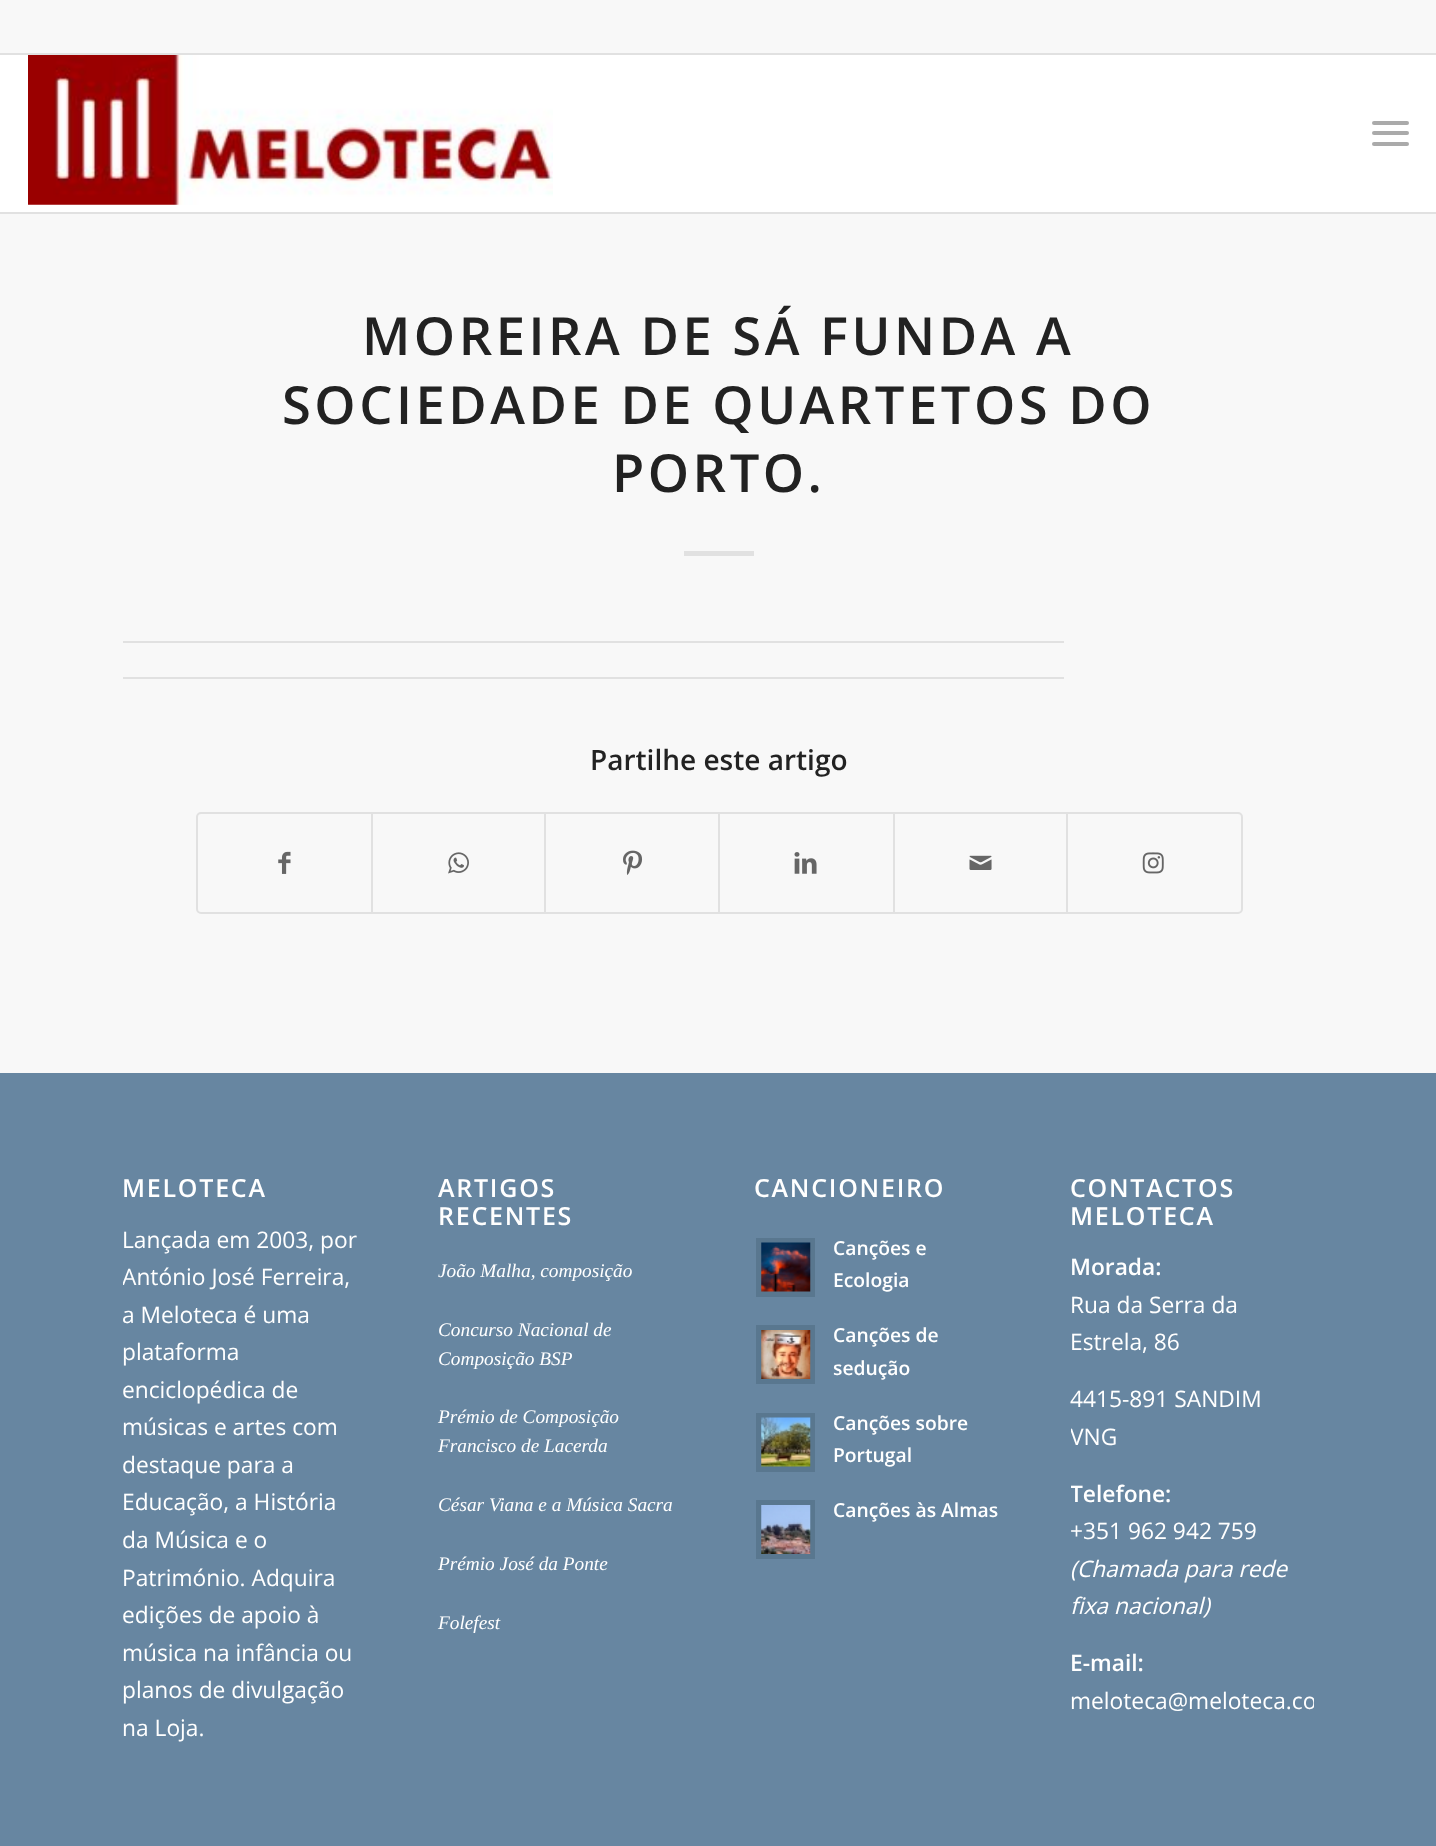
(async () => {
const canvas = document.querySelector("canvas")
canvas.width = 1436
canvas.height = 1846
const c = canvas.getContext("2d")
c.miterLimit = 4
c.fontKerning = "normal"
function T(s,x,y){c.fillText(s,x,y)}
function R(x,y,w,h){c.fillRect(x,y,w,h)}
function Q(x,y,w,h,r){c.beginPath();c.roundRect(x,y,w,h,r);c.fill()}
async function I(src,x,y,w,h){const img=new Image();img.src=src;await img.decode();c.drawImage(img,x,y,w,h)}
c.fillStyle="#f8f8f8"
R(0,0,1436,1846)
c.fillStyle="#e1e1e1"
R(0,53,1436,2)
c.fillStyle="#fff"
R(0,55,1436,157)
c.fillStyle="#e1e1e1"
R(0,212,1436,2)
await I("1.png",28,55,525,150)
c.fillStyle="#aaa"
Q(1372,131,37,4,2)
Q(1372,121,37,4,2)
Q(1372,142,37,4,2)
c.letterSpacing="3.5px"
c.font="600 52.5px Open Sans"
c.fillStyle="#222"
T("MOREIRA DE SÁ FUNDA A",362,355)
T("SOCIEDADE DE QUARTETOS DO",282,424)
T("PORTO.",612,492)
c.fillStyle="#e1e1e1"
R(684,551,70,5)
R(123,641,941,2)
R(123,677,941,2)
c.letterSpacing="0px"
c.font="600 28px Open Sans"
c.fillStyle="#222"
T("Partilhe este artigo",590,770)
c.beginPath()
c.roundRect(197,813,1045,100,4)
c.strokeStyle="#e1e1e1"
c.lineWidth=2
c.stroke()
await I("2.png",278,851,13,23)
c.fillStyle="#e1e1e1"
R(371,814,2,98)
await I("3.png",448,852,21,22)
R(544,814,2,98)
await I("4.png",623,850,20,25)
R(718,814,2,98)
await I("5.png",794,852,23,22)
R(893,814,2,98)
await I("6.png",969,855,23,15)
R(1066,814,2,98)
await I("7.png",1142,852,22,22)
c.fillStyle="#6786a1"
R(0,1073,1436,773)
c.letterSpacing="1.75px"
c.font="600 25px Open Sans"
c.fillStyle="#fff"
T("MELOTECA",122,1197)
c.letterSpacing="0px"
c.font="22.75px Open Sans"
T("Lançada em 2003, por",122,1248)
c.save()
c.beginPath()
c.rect(123,1153,243,613)
c.clip()
T("António José Ferreira,",122,1285)
T("a Meloteca é uma",122,1323)
c.restore()
T("plataforma",122,1360)
T("enciclopédica de",122,1398)
T("músicas e artes com",122,1435)
T("destaque para a",122,1473)
T("Educação, a História",122,1510)
T("da Música e o",122,1548)
T("Património. Adquira",122,1586)
T("edições de apoio à",122,1623)
T("música na infância ou",122,1661)
T("planos de divulgação",122,1698)
T("na Loja.",122,1736)
c.letterSpacing="1.75px"
c.font="600 25px Open Sans"
T("ARTIGOS",438,1197)
T("RECENTES",438,1225)
c.letterSpacing="0px"
c.font="italic 19.3px Liberation Serif"
T("João Malha, composição",438,1277)
T("Concurso Nacional de",438,1336)
T("Composição BSP",438,1365)
T("Prémio de Composição",438,1423)
T("Francisco de Lacerda",438,1452)
T("César Viana e a Música Sacra",438,1511)
T("Prémio José da Ponte",438,1570)
T("Folefest",438,1629)
c.letterSpacing="1.75px"
c.font="600 25px Open Sans"
T("CANCIONEIRO",754,1197)
c.fillStyle="#59778f"
R(756,1238,59,59)
await I("8.png",761,1242,50,50)
c.letterSpacing="0px"
c.font="600 19.3px Open Sans"
c.fillStyle="#fff"
T("Canções e",833,1255)
T("Ecologia",833,1287)
c.fillStyle="#59778f"
R(756,1325,59,59)
await I("9.png",761,1330,50,49)
c.fillStyle="#fff"
T("Canções de",833,1342)
T("sedução",833,1375)
c.fillStyle="#59778f"
R(756,1413,59,59)
await I("10.png",761,1417,50,50)
c.fillStyle="#fff"
T("Canções sobre",833,1430)
T("Portugal",833,1462)
c.fillStyle="#59778f"
R(756,1500,59,59)
await I("11.png",761,1505,50,49)
c.fillStyle="#fff"
T("Canções às Almas",833,1517)
c.letterSpacing="1.75px"
c.font="600 25px Open Sans"
T("CONTACTOS",1070,1197)
T("MELOTECA",1070,1225)
c.letterSpacing="0px"
c.font="600 22.75px Open Sans"
T("Morada:",1070,1275)
c.font="22.75px Open Sans"
T("Rua da Serra da",1070,1313)
T("Estrela, 86",1070,1350)
T("4415-891 SANDIM",1070,1407)
c.save()
c.beginPath()
c.rect(1071,1153,243,587)
c.clip()
T("VNG",1070,1445)
c.font="600 22.75px Open Sans"
T("Telefone:",1070,1502)
c.restore()
T("+351 962 942 759",1070,1539)
c.font="italic 22.75px Open Sans"
T("(Chamada para rede",1070,1577)
T("fixa nacional)",1070,1614)
c.font="600 22.75px Open Sans"
T("E-mail:",1070,1671)
c.save()
c.beginPath()
c.rect(1071,1153,243,587)
c.clip()
c.font="22.75px Open Sans"
T("meloteca@meloteca.co",1070,1709)
c.restore()
})()
